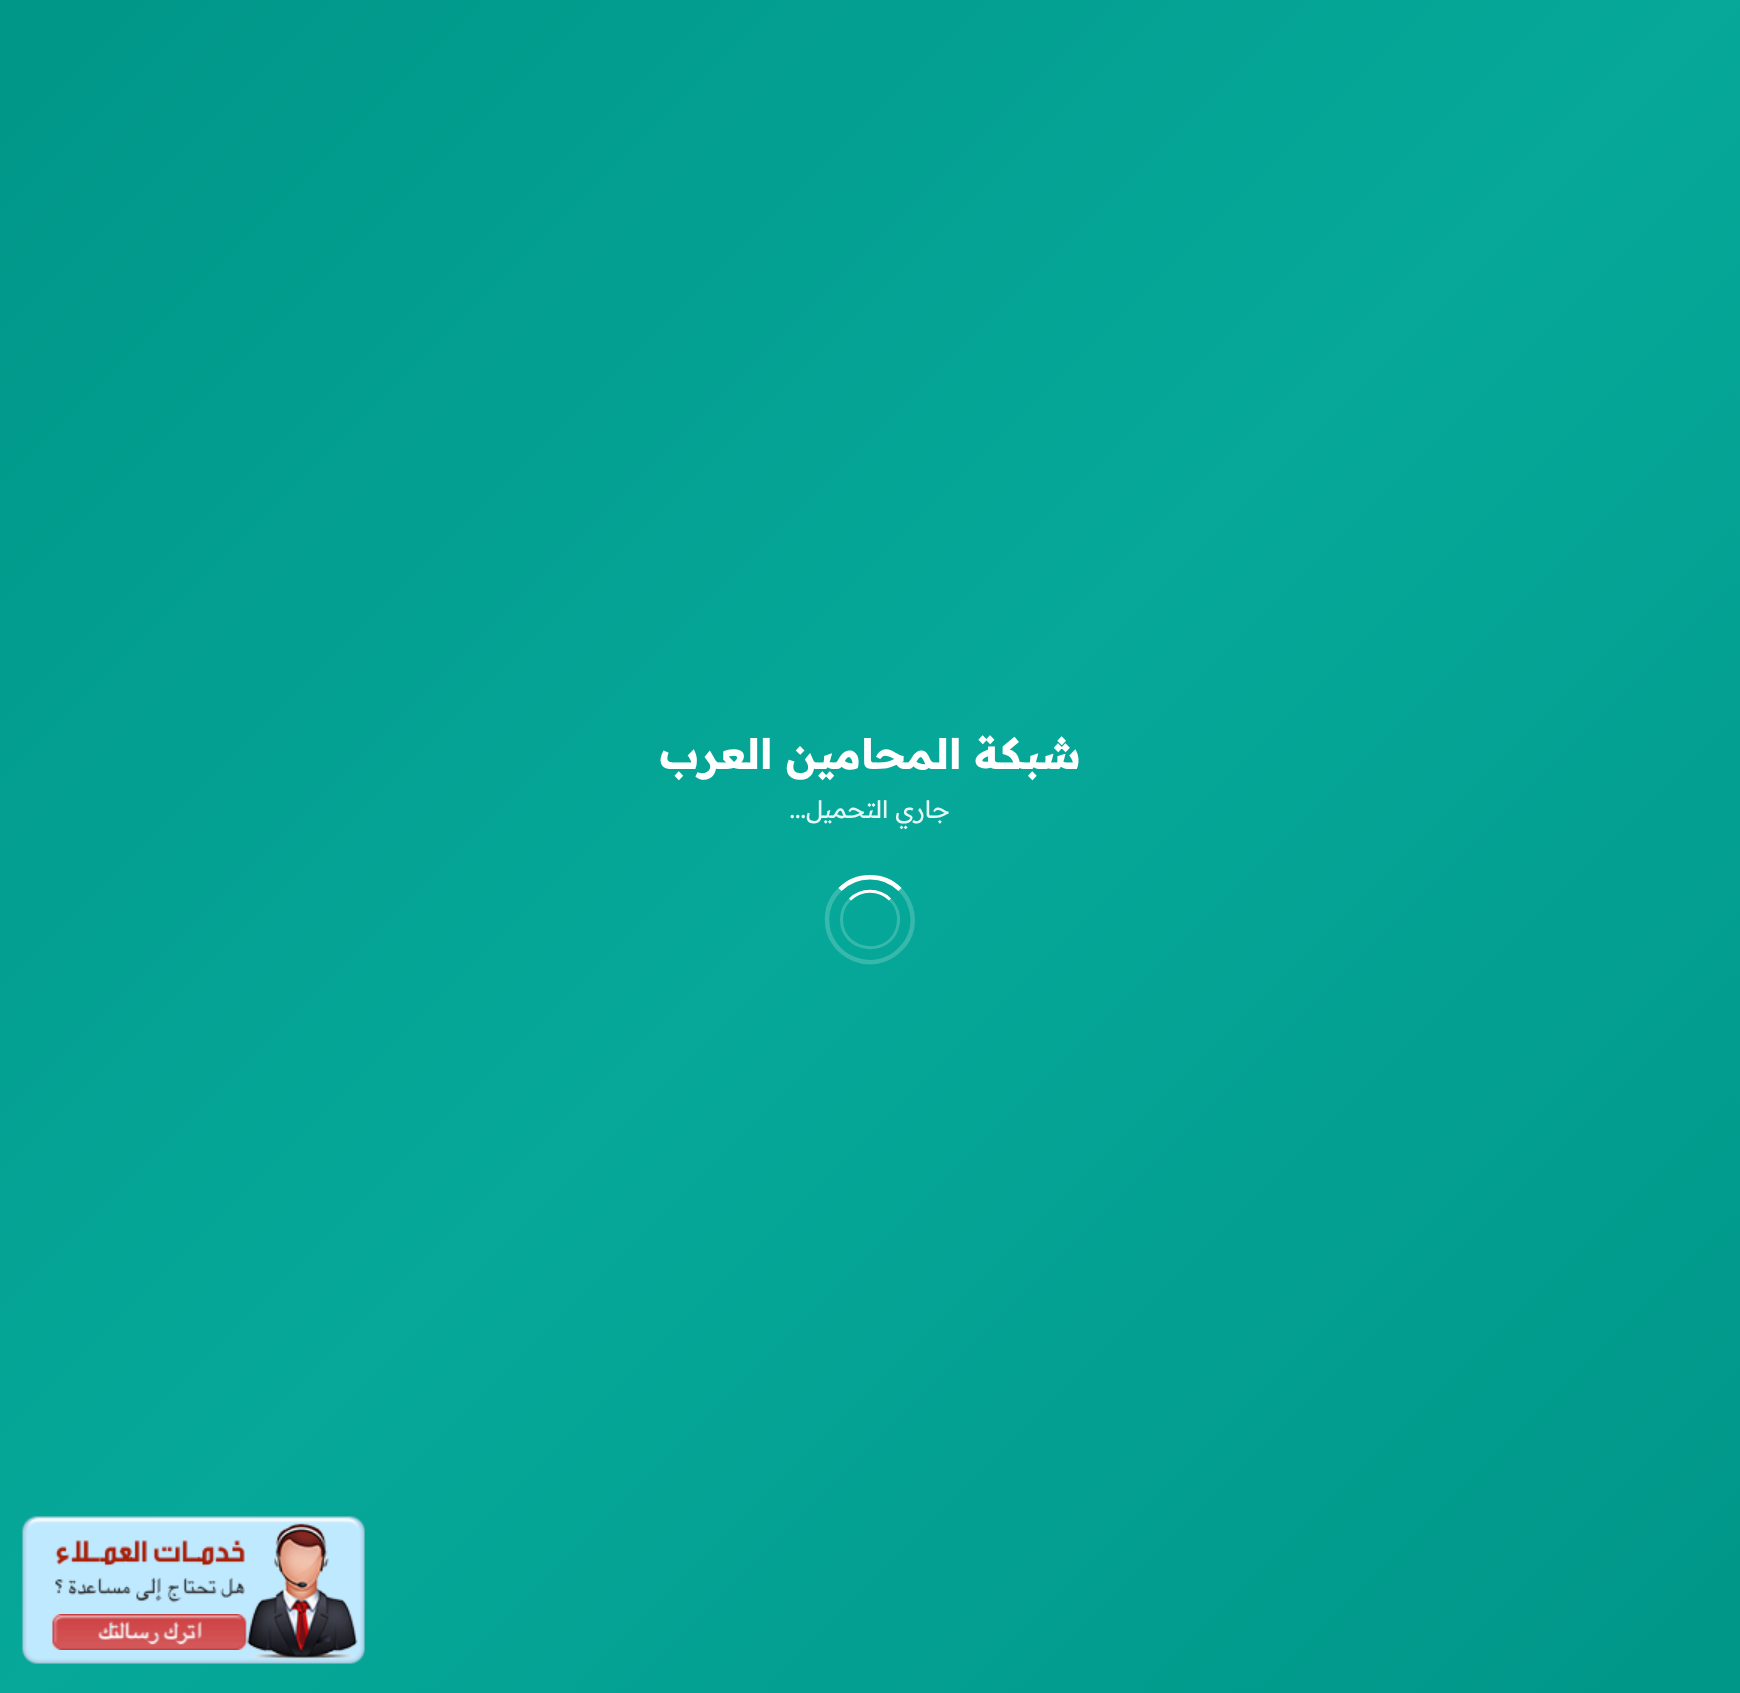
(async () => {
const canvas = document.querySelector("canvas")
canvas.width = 1740
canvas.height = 1693
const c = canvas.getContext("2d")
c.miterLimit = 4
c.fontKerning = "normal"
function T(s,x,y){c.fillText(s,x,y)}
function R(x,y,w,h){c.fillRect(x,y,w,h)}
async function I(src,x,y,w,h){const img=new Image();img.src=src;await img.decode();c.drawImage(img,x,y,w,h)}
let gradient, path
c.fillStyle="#fff"
R(0,0,1740,1693)
gradient = c.createLinearGradient(12,-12,1728,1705)
gradient.addColorStop(0,"#009688")
gradient.addColorStop(.5,"#06a899")
gradient.addColorStop(1,"#009688")
c.fillStyle = gradient
R(0,0,1740,1693)
c.direction="rtl"
c.font="bold 42px Readex Pro"
c.fillStyle="#fff"
T("شبكة المحامين العرب",1081,769)
c.font="24px Readex Pro"
c.fillStyle="#e6f6f5"
T("جاري التحميل...",950,818)
path = new Path2D("M840 889.5c16-16.5 44-16.5 60 0")
c.strokeStyle="#fff"
c.lineWidth=4.5
c.stroke(path)
path = new Path2D("M900 889.5c10 10 14.5 24.5 12 38.5c-1.5 8-6 16-12 21.5c-26.5 27-73 8-73-30c0-11.5 5-22.5 13-30")
c.strokeStyle="#ffffff33"
c.stroke(path)
path = new Path2D("M850 899.5c11-11 29-11 40 0")
c.strokeStyle="#fff"
c.lineWidth=3
c.stroke(path)
path = new Path2D("M890 899.5c7 6.5 10 16.5 8 25.5c-6.5 33.5-56.5 28.5-56.5-5.5c0-7.5 3-15 8.5-20")
c.strokeStyle="#ffffff33"
c.stroke(path)
await I("1.png",22,1516,343,148)
await I("2.png",52,1614,195,36)
})()
